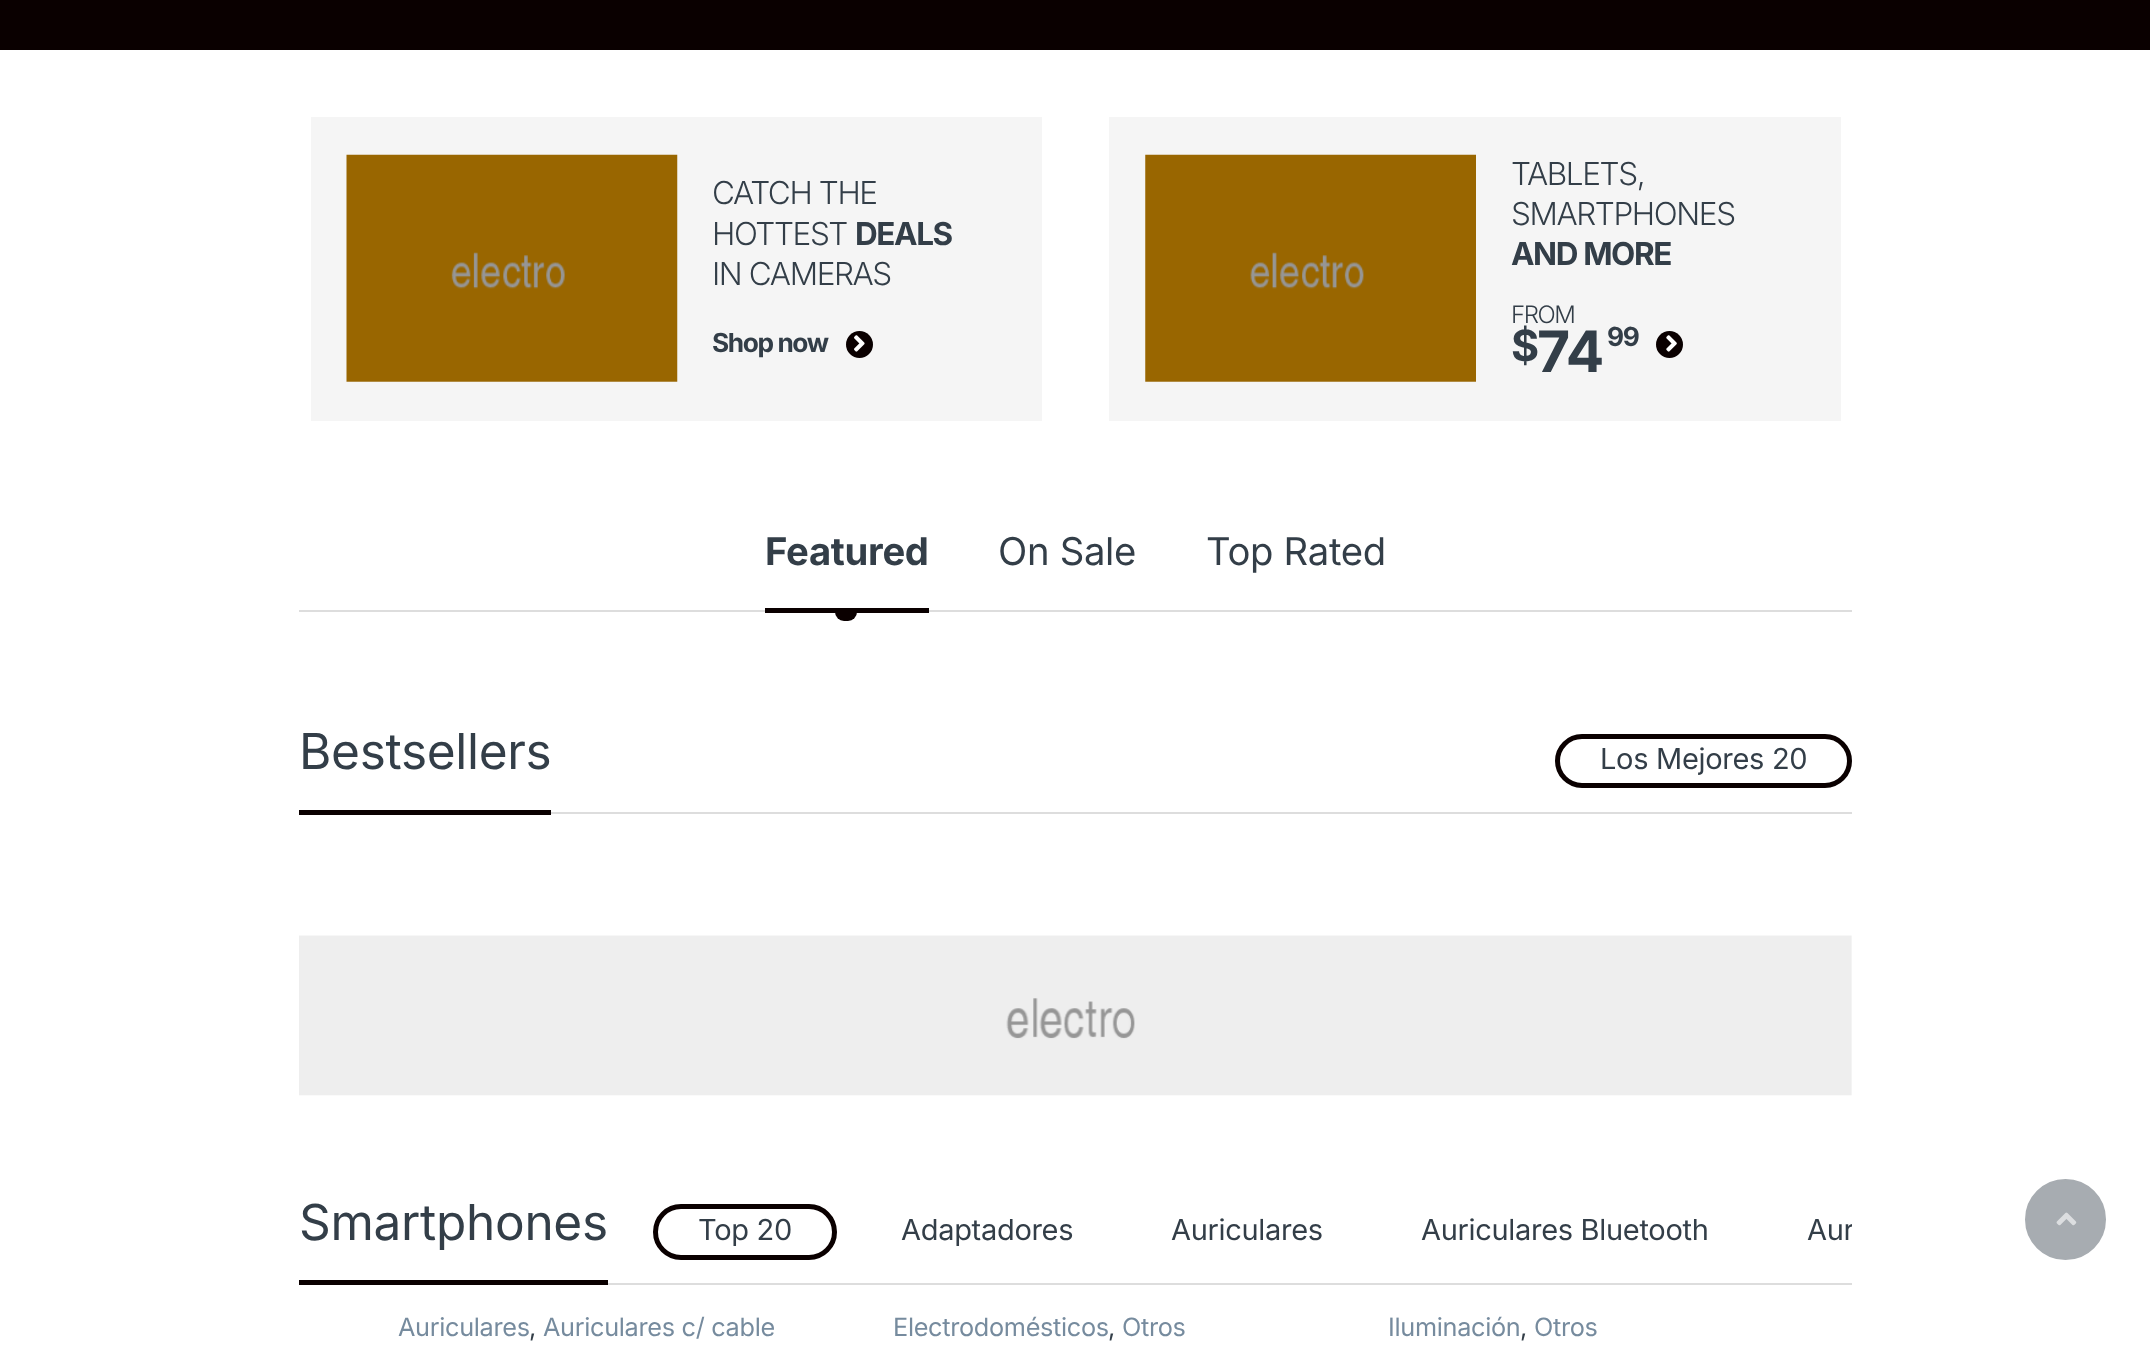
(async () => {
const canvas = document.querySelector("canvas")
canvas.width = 2150
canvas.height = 1358
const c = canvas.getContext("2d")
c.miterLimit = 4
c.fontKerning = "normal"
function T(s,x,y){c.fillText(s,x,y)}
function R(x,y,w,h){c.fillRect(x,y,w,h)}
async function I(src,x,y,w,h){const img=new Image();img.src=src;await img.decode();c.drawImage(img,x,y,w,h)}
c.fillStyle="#fff"
R(0,0,2150,1358)
c.fillStyle="#0a0000"
R(0,0,2150,50)
c.fillStyle="#f5f5f5"
R(311,117,731,304)
await I("1.png",346,154,332,228)
c.letterSpacing="-1.4px"
c.font="300 31.5px Inter"
c.fillStyle="#333e48"
T("CATCH THE",712,204)
T("HOTTEST",712,245)
c.font="bold 31.5px Inter"
T("DEALS",855,245)
c.font="300 31.5px Inter"
T("IN CAMERAS",712,285)
c.font="bold 26.25px Inter"
T("Shop now",712,352)
c.fillStyle="#0a0000"
c.beginPath()
c.arc(859.5,344.5,13.5,0,7)
c.fill()
await I("2.png",854,335,11,17)
c.fillStyle="#f5f5f5"
R(1109,117,732,304)
await I("3.png",1145,154,331,228)
c.font="300 31.5px Inter"
c.fillStyle="#333e48"
T("TABLETS,",1511,185)
T("SMARTPHONES",1511,225)
c.font="bold 31.5px Inter"
T("AND MORE",1511,265)
c.font="300 24px Inter"
T("FROM",1511,323)
c.letterSpacing="-1px"
c.font="bold 43px Inter"
T("$",1511,361)
c.font="bold 57px Inter"
T("74",1537,372)
c.letterSpacing="-1.4px"
c.font="bold 26.25px Inter"
T("99",1607,346)
c.fillStyle="#0a0000"
c.beginPath()
c.arc(1669.5,344.5,13.5,0,7)
c.fill()
await I("4.png",1666,335,11,17)
c.letterSpacing="-0.3px"
c.font="bold 38.25px Inter"
c.fillStyle="#333e48"
T("Featured",765,565)
c.fillStyle="#0a0000"
c.beginPath()
c.roundRect(835,612,22,9,[0,0,9,9])
c.fill()
c.fillStyle="#ddd"
R(299,610,1553,2)
c.fillStyle="#0a0000"
R(765,608,164,5)
c.font="38.25px Inter"
c.fillStyle="#333e48"
T("On Sale",998,565)
T("Top Rated",1206,565)
c.fillStyle="#ddd"
R(551,812,1301,2)
c.font="49.5px Inter"
c.fillStyle="#333e48"
T("Bestsellers",299,769)
c.fillStyle="#0a0000"
R(299,810,252,5)
c.beginPath()
c.roundRect(1557.5,736.5,292,49,24.5)
c.strokeStyle="#0a0000"
c.lineWidth=5
c.stroke()
c.font="29px Inter"
c.fillStyle="#333e48"
T("Los Mejores 20",1600,769)
await I("5.png",299,935,1553,161)
c.fillStyle="#ddd"
R(608,1283,1244,2)
c.font="49.5px Inter"
c.fillStyle="#333e48"
T("Smartphones",299,1240)
c.fillStyle="#0a0000"
R(299,1280,309,5)
c.beginPath()
c.roundRect(655.5,1206.5,179,51,25.5)
c.stroke()
c.font="29px Inter"
c.fillStyle="#333e48"
T("Top 20",698,1240)
T("Adaptadores",901,1240)
T("Auriculares",1171,1240)
T("Auriculares Bluetooth",1421,1240)
c.save()
c.beginPath()
c.rect(653,1199,1199,66)
c.clip()
T("Aur",1807,1240)
c.restore()
c.font="25.25px Inter"
c.fillStyle="#768b9e"
T("Auriculares",398,1336)
c.fillStyle="#333e48"
T(",",529,1336)
c.fillStyle="#768b9e"
T("Auriculares c/ cable",543,1336)
T("Electrodomésticos",893,1336)
c.fillStyle="#333e48"
T(",",1108,1336)
c.fillStyle="#768b9e"
T("Otros",1122,1336)
T("Iluminación",1388,1336)
c.fillStyle="#333e48"
T(",",1520,1336)
c.fillStyle="#768b9e"
T("Otros",1534,1336)
c.fillStyle="#a7acb1"
c.beginPath()
c.arc(2065.5,1219.5,39.5,0,7)
c.fill()
c.strokeStyle="#a7acb1"
c.lineWidth=2
c.stroke()
await I("6.png",2056,1212,21,14)
})()
